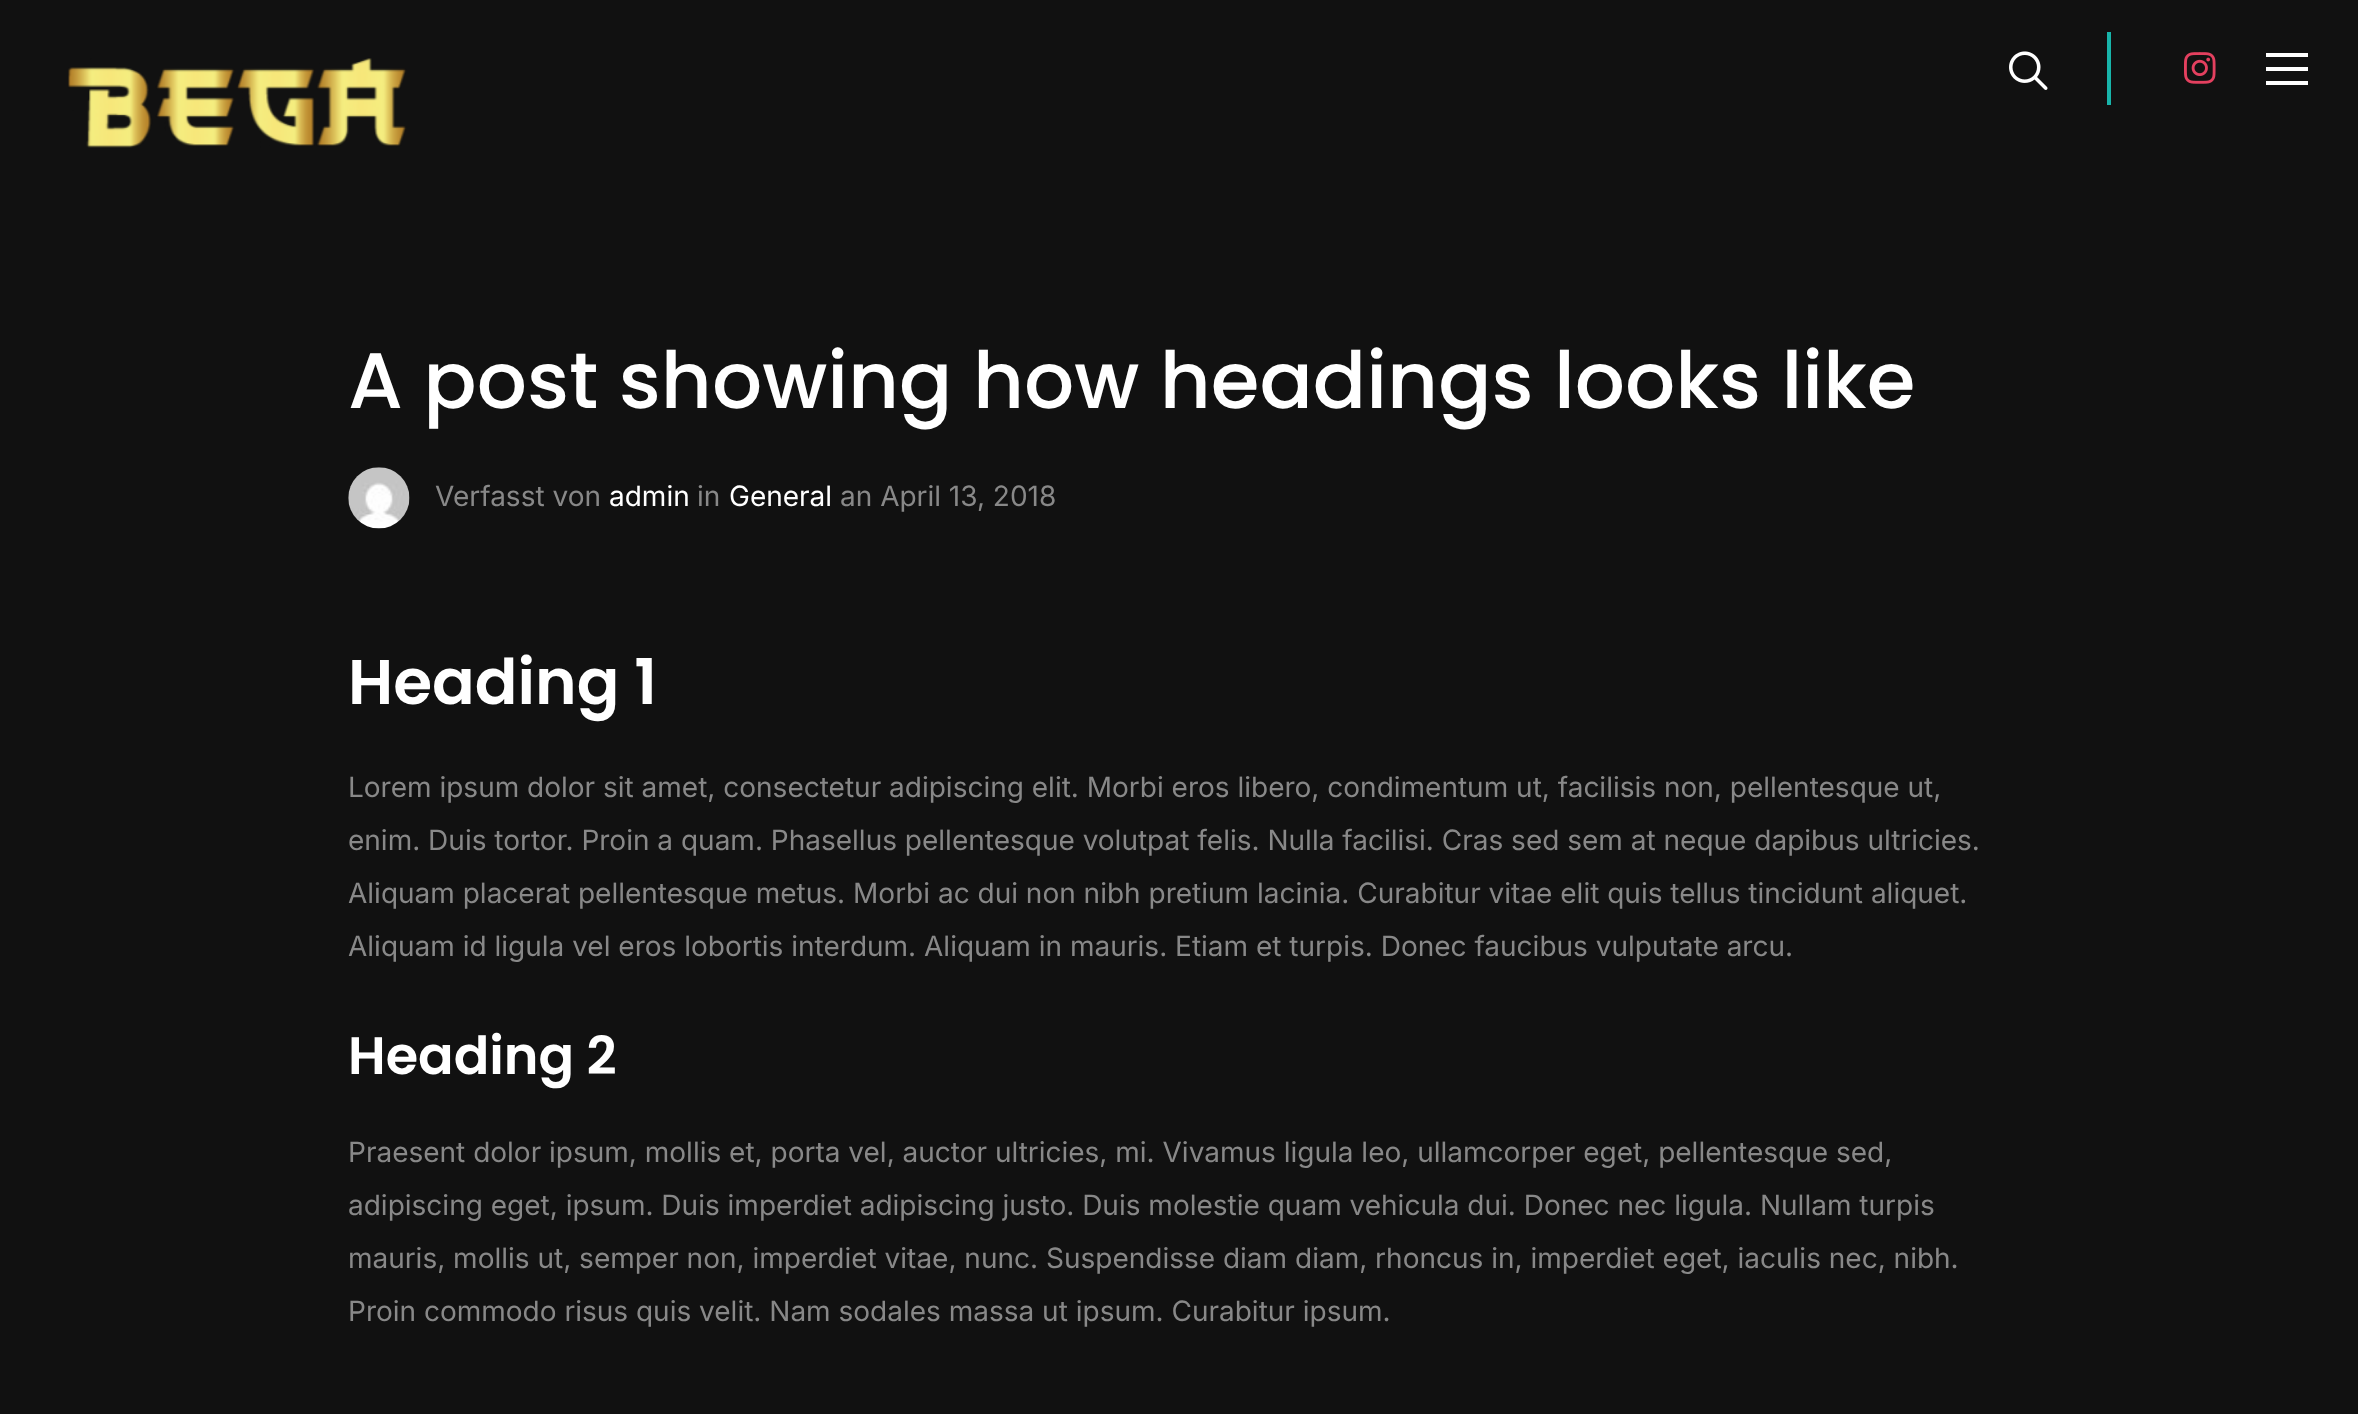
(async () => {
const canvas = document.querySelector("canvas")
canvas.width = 2358
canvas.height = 1414
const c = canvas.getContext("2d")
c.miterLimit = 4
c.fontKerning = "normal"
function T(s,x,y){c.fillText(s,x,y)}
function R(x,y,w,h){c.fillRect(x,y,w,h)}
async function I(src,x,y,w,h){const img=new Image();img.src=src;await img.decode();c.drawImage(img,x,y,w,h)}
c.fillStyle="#111"
R(0,0,2358,1414)
await I("1.png",68,58,339,90)
await I("2.png",2009,51,39,39)
c.fillStyle="#18b4aa"
R(2107,32,4,73)
await I("3.png",2184,52,32,32)
c.fillStyle="#fff"
R(2266,53,42,4)
R(2266,67,42,4)
R(2266,81,42,4)
c.font="500 78.75px Poppins"
T("A post showing how headings looks like",348,408)
await I("4.png",348,467,62,62)
c.font="28px Inter"
c.fillStyle="#888"
T("Verfasst von",435,506)
c.fillStyle="#fff"
T("admin",609,506)
c.fillStyle="#888"
T("in",697,506)
c.fillStyle="#fff"
T("General",729,506)
c.fillStyle="#888"
T("an April 13, 2018",840,506)
c.font="600 63px Poppins"
c.fillStyle="#fff"
T("Heading 1",348,704)
c.font="28px Inter"
c.fillStyle="#888"
T("Lorem ipsum dolor sit amet, consectetur adipiscing elit. Morbi eros libero, condimentum ut, facilisis non, pellentesque ut,",348,797)
T("enim. Duis tortor. Proin a quam. Phasellus pellentesque volutpat felis. Nulla facilisi. Cras sed sem at neque dapibus ultricies.",348,850)
T("Aliquam placerat pellentesque metus. Morbi ac dui non nibh pretium lacinia. Curabitur vitae elit quis tellus tincidunt aliquet.",348,903)
T("Aliquam id ligula vel eros lobortis interdum. Aliquam in mauris. Etiam et turpis. Donec faucibus vulputate arcu.",348,956)
c.font="600 52.5px Poppins"
c.fillStyle="#fff"
T("Heading 2",348,1074)
c.font="28px Inter"
c.fillStyle="#888"
T("Praesent dolor ipsum, mollis et, porta vel, auctor ultricies, mi. Vivamus ligula leo, ullamcorper eget, pellentesque sed,",348,1162)
T("adipiscing eget, ipsum. Duis imperdiet adipiscing justo. Duis molestie quam vehicula dui. Donec nec ligula. Nullam turpis",348,1215)
T("mauris, mollis ut, semper non, imperdiet vitae, nunc. Suspendisse diam diam, rhoncus in, imperdiet eget, iaculis nec, nibh.",348,1268)
T("Proin commodo risus quis velit. Nam sodales massa ut ipsum. Curabitur ipsum.",348,1321)
})()
